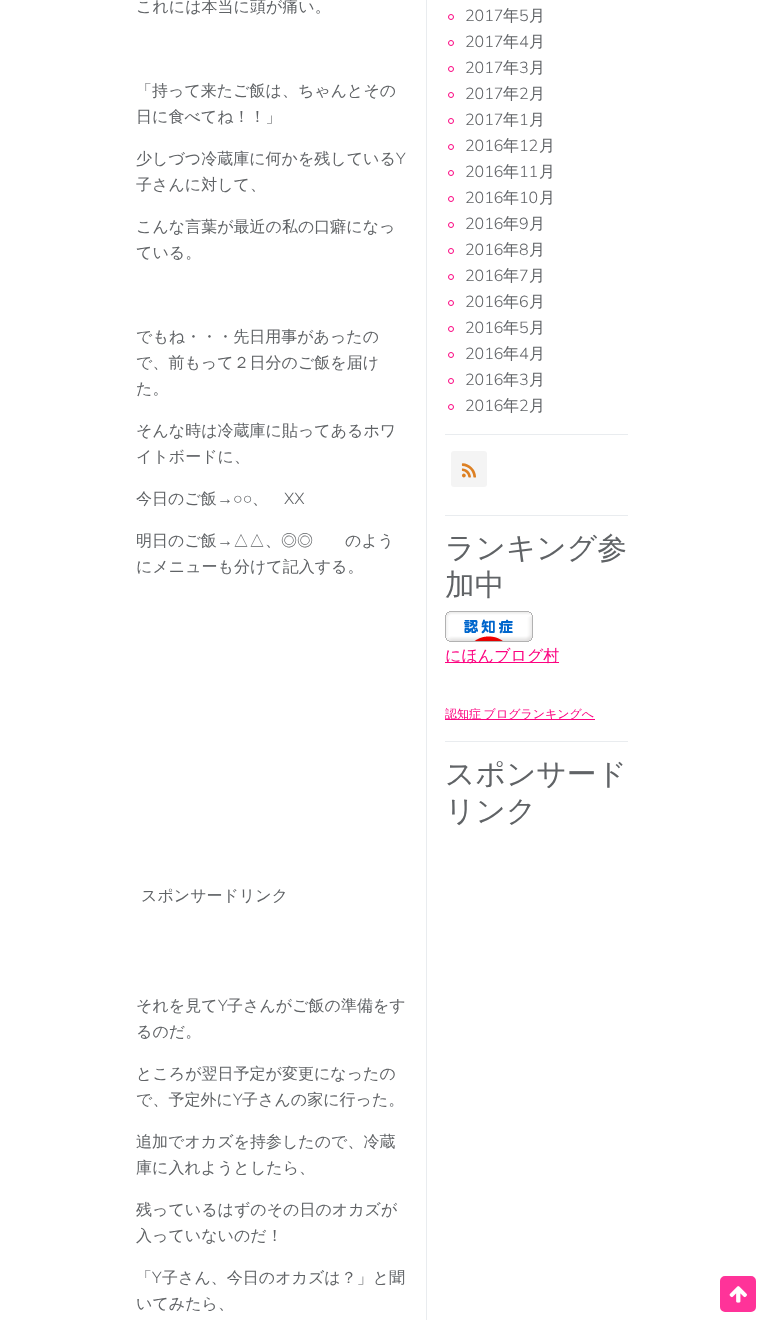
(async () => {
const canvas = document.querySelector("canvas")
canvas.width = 764
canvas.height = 1320
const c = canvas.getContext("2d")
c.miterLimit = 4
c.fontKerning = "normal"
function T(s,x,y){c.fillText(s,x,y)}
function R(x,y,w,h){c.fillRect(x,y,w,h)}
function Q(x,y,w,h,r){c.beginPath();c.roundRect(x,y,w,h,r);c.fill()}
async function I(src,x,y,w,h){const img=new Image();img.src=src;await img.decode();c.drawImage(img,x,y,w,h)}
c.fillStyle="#fff"
R(0,0,764,1320)
c.font="500 16px WenQuanYi Zen Hei"
c.fillStyle="#606366"
T("これには本当に頭が痛い。",136,12)
T("「持って来たご飯は、ちゃんとその",136,96)
T("日に食べてね！！」",136,122)
T("少しづつ冷蔵庫に何かを残している",136,164)
c.font="300 16px Mulish"
T("Y",396,164)
c.font="500 16px WenQuanYi Zen Hei"
T("子さんに対して、",136,190)
T("こんな言葉が最近の私の口癖になっ",136,232)
T("ている。",136,258)
T("でもね・・・先日用事があったの",136,342)
T("で、前もって２日分のご飯を届け",136,368)
T("た。",136,394)
T("そんな時は冷蔵庫に貼ってあるホワ",136,436)
T("イトボードに、",136,462)
T("今日のご飯",136,504)
c.font="16px Liberation Sans"
T("→○○",217,504)
c.font="500 16px WenQuanYi Zen Hei"
T("、",252,504)
c.font="300 16px Mulish"
T("XX",284,504)
c.font="500 16px WenQuanYi Zen Hei"
T("明日のご飯",136,546)
c.font="16px Liberation Sans"
T("→",217,546)
c.font="500 16px WenQuanYi Zen Hei"
T("△△、◎◎　　のよう",233,546)
T("にメニューも分けて記入する。",136,572)
T("スポンサードリンク",141,901)
T("それを見て",136,1011)
c.font="300 16px Mulish"
T("Y",218,1011)
c.font="500 16px WenQuanYi Zen Hei"
T("子さんがご飯の準備をす",227,1011)
T("るのだ。",136,1037)
T("ところが翌日予定が変更になったの",136,1079)
T("で、予定外に",136,1105)
c.font="300 16px Mulish"
T("Y",233,1105)
c.font="500 16px WenQuanYi Zen Hei"
T("子さんの家に行った。",242,1105)
T("追加でオカズを持参したので、冷蔵",136,1147)
T("庫に入れようとしたら、",136,1173)
T("残っているはずのその日のオカズが",136,1215)
T("入っていないのだ！",136,1241)
T("「",136,1283)
c.font="300 16px Mulish"
T("Y",152,1283)
c.font="500 16px WenQuanYi Zen Hei"
T("子さん、今日のオカズは？」と聞",162,1283)
T("いてみたら、",136,1309)
c.fillStyle="#e9ecef"
R(426,0,1,1320)
R(445,434,183,1)
c.beginPath()
c.arc(451,17,2.5,0,7)
c.strokeStyle="#fc0380"
c.stroke()
c.font="300 16px Mulish"
c.fillStyle="#606366"
T("2017",465,21)
c.font="500 16px WenQuanYi Zen Hei"
T("年",503,21)
c.font="300 16px Mulish"
T("5",519,21)
c.font="500 16px WenQuanYi Zen Hei"
T("月",529,21)
c.beginPath()
c.arc(451,43,2.5,0,7)
c.stroke()
c.font="300 16px Mulish"
T("2017",465,47)
c.font="500 16px WenQuanYi Zen Hei"
T("年",503,47)
c.font="300 16px Mulish"
T("4",519,47)
c.font="500 16px WenQuanYi Zen Hei"
T("月",529,47)
c.beginPath()
c.arc(451,69,2.5,0,7)
c.stroke()
c.font="300 16px Mulish"
T("2017",465,73)
c.font="500 16px WenQuanYi Zen Hei"
T("年",503,73)
c.font="300 16px Mulish"
T("3",519,73)
c.font="500 16px WenQuanYi Zen Hei"
T("月",529,73)
c.beginPath()
c.arc(451,95,2.5,0,7)
c.stroke()
c.font="300 16px Mulish"
T("2017",465,99)
c.font="500 16px WenQuanYi Zen Hei"
T("年",503,99)
c.font="300 16px Mulish"
T("2",519,99)
c.font="500 16px WenQuanYi Zen Hei"
T("月",529,99)
c.beginPath()
c.arc(451,121,2.5,0,7)
c.stroke()
c.font="300 16px Mulish"
T("2017",465,125)
c.font="500 16px WenQuanYi Zen Hei"
T("年",503,125)
c.font="300 16px Mulish"
T("1",519,125)
c.font="500 16px WenQuanYi Zen Hei"
T("月",529,125)
c.beginPath()
c.arc(451,147,2.5,0,7)
c.stroke()
c.font="300 16px Mulish"
T("2016",465,151)
c.font="500 16px WenQuanYi Zen Hei"
T("年",503,151)
c.font="300 16px Mulish"
T("12",519,151)
c.font="500 16px WenQuanYi Zen Hei"
T("月",539,151)
c.beginPath()
c.arc(451,173,2.5,0,7)
c.stroke()
c.font="300 16px Mulish"
T("2016",465,177)
c.font="500 16px WenQuanYi Zen Hei"
T("年",503,177)
c.font="300 16px Mulish"
T("11",519,177)
c.font="500 16px WenQuanYi Zen Hei"
T("月",539,177)
c.beginPath()
c.arc(451,199,2.5,0,7)
c.stroke()
c.font="300 16px Mulish"
T("2016",465,203)
c.font="500 16px WenQuanYi Zen Hei"
T("年",503,203)
c.font="300 16px Mulish"
T("10",519,203)
c.font="500 16px WenQuanYi Zen Hei"
T("月",539,203)
c.beginPath()
c.arc(451,225,2.5,0,7)
c.stroke()
c.font="300 16px Mulish"
T("2016",465,229)
c.font="500 16px WenQuanYi Zen Hei"
T("年",503,229)
c.font="300 16px Mulish"
T("9",519,229)
c.font="500 16px WenQuanYi Zen Hei"
T("月",529,229)
c.beginPath()
c.arc(451,251,2.5,0,7)
c.stroke()
c.font="300 16px Mulish"
T("2016",465,255)
c.font="500 16px WenQuanYi Zen Hei"
T("年",503,255)
c.font="300 16px Mulish"
T("8",519,255)
c.font="500 16px WenQuanYi Zen Hei"
T("月",529,255)
c.beginPath()
c.arc(451,277,2.5,0,7)
c.stroke()
c.font="300 16px Mulish"
T("2016",465,281)
c.font="500 16px WenQuanYi Zen Hei"
T("年",503,281)
c.font="300 16px Mulish"
T("7",519,281)
c.font="500 16px WenQuanYi Zen Hei"
T("月",529,281)
c.beginPath()
c.arc(451,303,2.5,0,7)
c.stroke()
c.font="300 16px Mulish"
T("2016",465,307)
c.font="500 16px WenQuanYi Zen Hei"
T("年",503,307)
c.font="300 16px Mulish"
T("6",519,307)
c.font="500 16px WenQuanYi Zen Hei"
T("月",529,307)
c.beginPath()
c.arc(451,329,2.5,0,7)
c.stroke()
c.font="300 16px Mulish"
T("2016",465,333)
c.font="500 16px WenQuanYi Zen Hei"
T("年",503,333)
c.font="300 16px Mulish"
T("5",519,333)
c.font="500 16px WenQuanYi Zen Hei"
T("月",529,333)
c.beginPath()
c.arc(451,355,2.5,0,7)
c.stroke()
c.font="300 16px Mulish"
T("2016",465,359)
c.font="500 16px WenQuanYi Zen Hei"
T("年",503,359)
c.font="300 16px Mulish"
T("4",519,359)
c.font="500 16px WenQuanYi Zen Hei"
T("月",529,359)
c.beginPath()
c.arc(451,381,2.5,0,7)
c.stroke()
c.font="300 16px Mulish"
T("2016",465,385)
c.font="500 16px WenQuanYi Zen Hei"
T("年",503,385)
c.font="300 16px Mulish"
T("3",519,385)
c.font="500 16px WenQuanYi Zen Hei"
T("月",529,385)
c.beginPath()
c.arc(451,407,2.5,0,7)
c.stroke()
c.font="300 16px Mulish"
T("2016",465,411)
c.font="500 16px WenQuanYi Zen Hei"
T("年",503,411)
c.font="300 16px Mulish"
T("2",519,411)
c.font="500 16px WenQuanYi Zen Hei"
T("月",529,411)
c.fillStyle="#e9ecef"
R(445,515,183,1)
c.fillStyle="#f4f4f4"
Q(451,451,36,36,3)
await I("1.png",461,463,15,15)
c.fillStyle="#e9ecef"
R(445,741,183,1)
c.font="500 29.75px WenQuanYi Zen Hei"
c.fillStyle="#606366"
T("ランキング参",445,558)
T("加中",445,595)
await I("2.png",445,611,88,31)
c.fillStyle="#fc0380"
R(445,662,114,1)
c.font="500 16px WenQuanYi Zen Hei"
T("にほんブログ村",445,661)
R(445,719,150,1)
c.wordSpacing="-1px"
c.font="500 12px WenQuanYi Zen Hei"
T("認知症 ブログランキングへ",445,718)
c.wordSpacing="0px"
c.font="500 29.75px WenQuanYi Zen Hei"
c.fillStyle="#606366"
T("スポンサード",445,784)
T("リンク",445,821)
c.fillStyle="#f39"
c.beginPath()
c.roundRect(721,1277,34,34,4)
c.fill()
c.strokeStyle="#f39"
c.lineWidth=2
c.stroke()
await I("3.png",729,1286,18,17)
})()
